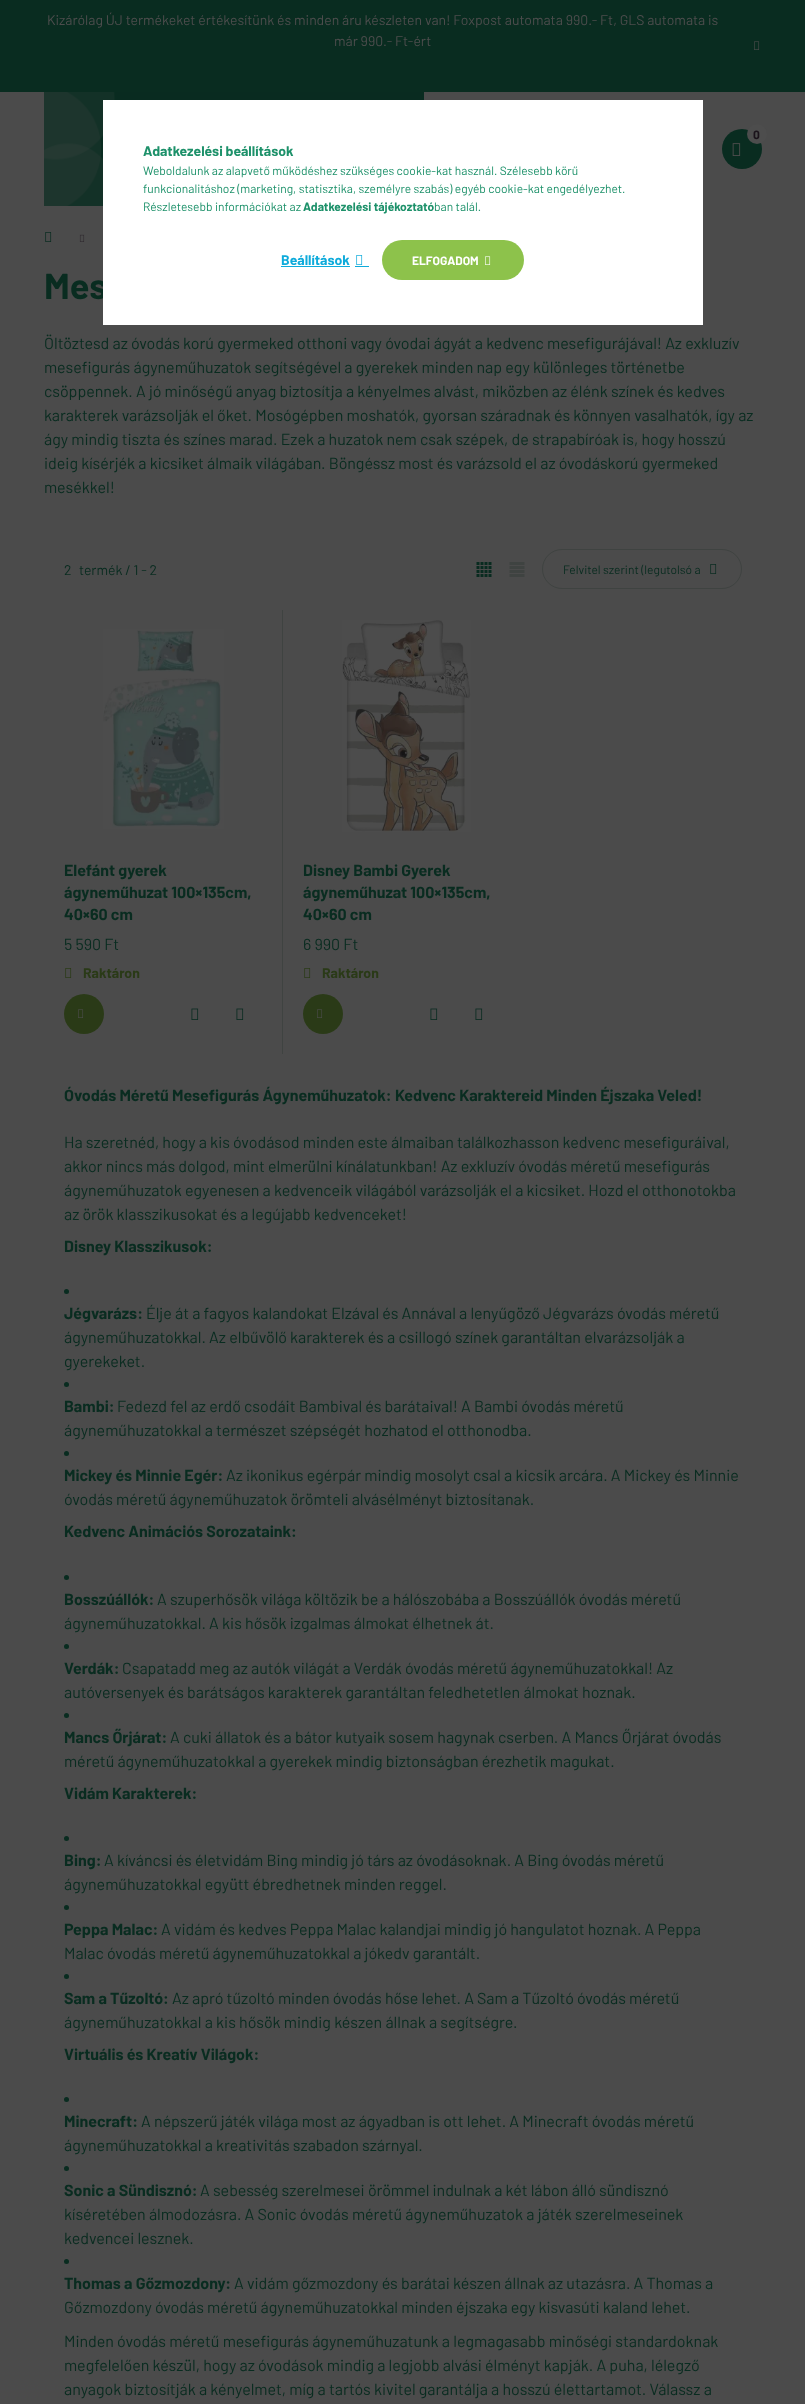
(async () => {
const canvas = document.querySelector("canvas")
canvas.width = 805
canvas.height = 2404
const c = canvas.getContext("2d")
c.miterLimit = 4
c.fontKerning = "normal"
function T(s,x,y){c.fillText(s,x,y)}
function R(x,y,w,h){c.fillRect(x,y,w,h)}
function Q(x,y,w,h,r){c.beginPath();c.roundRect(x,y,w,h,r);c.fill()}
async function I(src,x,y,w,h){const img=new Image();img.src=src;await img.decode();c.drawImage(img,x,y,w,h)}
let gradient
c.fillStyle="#4b4b4b"
R(0,0,805,2404)
c.fillStyle="#092c20"
R(0,0,805,92)
c.font="14px Barlow"
c.fillStyle="#4d4d4d"
T("Kizárólag ÚJ termékeket értékesítünk és minden áru készleten van! Foxpost automata 990.- Ft, GLS automata is",47,25)
T("már 990.- Ft-ért",334,46)
await I("1.png",754,41,6,9)
await I("2.png",44,92,380,114)
c.fillStyle="#092c20"
c.beginPath()
c.arc(742,149,20,0,7)
c.fill()
c.fillStyle="#4d4d4d"
c.beginPath()
c.arc(757,134,10,0,7)
c.fill()
c.font="bold 12px Barlow"
c.fillStyle="#1b131b"
T("0",753,139)
await I("3.png",732,143,9,13)
await I("4.png",45,232,7,10)
await I("5.png",79,234,6,8)
c.font="bold 36px Barlow"
c.fillStyle="#092c20"
T("Mes",44,299)
c.font="16px Barlow"
T("Öltöztesd az óvodás korú gyermeked otthoni vagy óvodai ágyát a kedvenc mesefigurájával! Az exkluzív",44,349)
T("mesefigurás ágyneműhuzatok segítségével a gyerekek minden nap egy különleges történetbe",44,373)
T("csöppennek. A jó minőségű anyag biztosítja a kényelmes alvást, miközben az élénk színek és kedves",44,397)
T("karakterek varázsolják el őket. Mosógépben moshatók, gyorsan száradnak és könnyen vasalhatók, így az",44,421)
T("ágy mindig tiszta és színes marad. Ezek a huzatok nem csak szépek, de strapabíróak is, hogy hosszú",44,445)
T("ideig kísérjék a kicsiket álmaik világában. Böngéssz most és varázsold el az óvodáskorú gyermeked",44,469)
T("mesékkel!",44,493)
c.font="14px Barlow"
T("2",64,575)
T("termék / 1 - 2",79,575)
await I("6.png",476,562,16,15)
await I("7.png",509,562,16,15)
c.beginPath()
c.roundRect(542.5,549.5,199,39,19.5)
c.strokeStyle="#3f4341"
c.stroke()
c.font="12px Barlow"
T("Felvitel szerint (legutolsó a",563,574)
await I("8.png",710,564,7,10)
c.fillStyle="#3f4341"
R(282,609,1,445)
c.fillStyle="#4b4b4b"
R(282,609,1,1)
await I("9.png",103,629,121,200)
c.font="bold 16px Barlow"
c.fillStyle="#092c20"
T("Elefánt gyerek",64,876)
T("ágyneműhuzat 100×135cm,",64,898)
T("40×60 cm",64,920)
c.font="16px Barlow"
T("5 590 Ft",64,950)
await I("10.png",65,968,7,10)
c.font="bold 14px Barlow"
c.fillStyle="#2a3a17"
T("Raktáron",83,978)
gradient = c.createLinearGradient(64,1014,184,1014)
gradient.addColorStop(.33,"#2a3a17")
gradient.addColorStop(.67,"#053342")
c.fillStyle = gradient
c.beginPath()
c.arc(84,1014,20,0,7)
c.fill()
await I("11.png",78,1009,6,9)
await I("12.png",191,1008,8,12)
await I("12.png",236,1008,8,12)
await I("13.png",342,620,129,212)
c.font="bold 16px Barlow"
c.fillStyle="#092c20"
T("Disney Bambi Gyerek",303,876)
T("ágyneműhuzat 100×135cm,",303,898)
T("40×60 cm",303,920)
c.font="16px Barlow"
T("6 990 Ft",303,950)
await I("10.png",304,968,7,10)
c.font="bold 14px Barlow"
c.fillStyle="#2a3a17"
T("Raktáron",322,978)
gradient = c.createLinearGradient(303,1014,423,1014)
gradient.addColorStop(.33,"#2a3a17")
gradient.addColorStop(.67,"#053342")
c.fillStyle = gradient
c.beginPath()
c.arc(323,1014,20,0,7)
c.fill()
await I("11.png",317,1009,6,9)
await I("12.png",430,1008,8,12)
await I("12.png",475,1008,8,12)
c.font="bold 16px Barlow"
c.fillStyle="#092c20"
T("Óvodás Méretű Mesefigurás Ágyneműhuzatok: Kedvenc Karaktereid Minden Éjszaka Veled!",64,1101)
c.font="16px Barlow"
T("Ha szeretnéd, hogy a kis óvodásod minden este álmaiban találkozhasson kedvenc mesefiguráival,",64,1148)
T("akkor nincs más dolgod, mint elmerülni kínálatunkban! Az exkluzív óvodás méretű mesefigurás",64,1172)
T("ágyneműhuzatok egyenesen a kedvenceik világából varázsolják el a kicsiket. Hozd el otthonotokba",64,1196)
T("az örök klasszikusokat és a legújabb kedvenceket!",64,1220)
c.font="bold 16px Barlow"
T("Disney Klasszikusok:",64,1252)
c.beginPath()
c.arc(66.5,1291.5,2.5,0,7)
c.fill()
T("Jégvarázs:",64,1319)
c.font="16px Barlow"
T("Élje át a fagyos kalandokat Elzával és Annával a lenyűgöző Jégvarázs óvodás méretű",146,1319)
T("ágyneműhuzatokkal. Az elbűvölő karakterek és a csillogó színek garantáltan elvarázsolják a",64,1343)
T("gyerekeket.",64,1367)
c.beginPath()
c.arc(66.5,1384.5,2.5,0,7)
c.fill()
c.font="bold 16px Barlow"
T("Bambi:",64,1412)
c.font="16px Barlow"
T("Fedezd fel az erdő csodáit Bambival és barátaival! A Bambi óvodás méretű",117,1412)
T("ágyneműhuzatokkal a természet szépségét hozhatod el otthonodba.",64,1436)
c.beginPath()
c.arc(66.5,1453.5,2.5,0,7)
c.fill()
c.font="bold 16px Barlow"
T("Mickey és Minnie Egér:",64,1481)
c.font="16px Barlow"
T("Az ikonikus egérpár mindig mosolyt csal a kicsik arcára. A Mickey és Minnie",226,1481)
T("óvodás méretű ágyneműhuzatok örömteli alvásélményt biztosítanak.",64,1505)
c.font="bold 16px Barlow"
T("Kedvenc Animációs Sorozataink:",64,1537)
c.beginPath()
c.arc(66.5,1577.5,2.5,0,7)
c.fill()
T("Bosszúállók:",64,1605)
c.font="16px Barlow"
T("A szuperhősök világa költözik be a hálószobába a Bosszúállók óvodás méretű",157,1605)
T("ágyneműhuzatokkal. A kis hősök izgalmas álmokat élhetnek át.",64,1629)
c.beginPath()
c.arc(66.5,1646.5,2.5,0,7)
c.fill()
c.font="bold 16px Barlow"
T("Verdák:",64,1674)
c.font="16px Barlow"
T("Csapatadd meg az autók világát a Verdák óvodás méretű ágyneműhuzatokkal! Az",122,1674)
T("autóversenyek és barátságos karakterek garantáltan feledhetetlen álmokat hoznak.",64,1698)
c.beginPath()
c.arc(66.5,1715.5,2.5,0,7)
c.fill()
c.font="bold 16px Barlow"
T("Mancs Őrjárat:",64,1743)
c.font="16px Barlow"
T("A cuki állatok és a bátor kutyaik sosem hagynak cserben. A Mancs Őrjárat óvodás",170,1743)
T("méretű ágyneműhuzatokkal a gyerekek mindig biztonságban érezhetik magukat.",64,1767)
c.font="bold 16px Barlow"
T("Vidám Karakterek:",64,1799)
c.beginPath()
c.arc(66.5,1838.5,2.5,0,7)
c.fill()
T("Bing:",64,1866)
c.font="16px Barlow"
T("A kíváncsi és életvidám Bing mindig jó társ az óvodásoknak. A Bing óvodás méretű",104,1866)
T("ágyneműhuzatokkal együtt ébredhetnek minden reggel.",64,1890)
c.beginPath()
c.arc(66.5,1907.5,2.5,0,7)
c.fill()
c.font="bold 16px Barlow"
T("Peppa Malac:",64,1935)
c.font="16px Barlow"
T("A vidám és kedves Peppa Malac kalandjai mindig jó hangulatot hoznak. A Peppa",161,1935)
T("Malac óvodás méretű ágyneműhuzatokkal a jókedv garantált.",64,1959)
c.beginPath()
c.arc(66.5,1976.5,2.5,0,7)
c.fill()
c.font="bold 16px Barlow"
T("Sam a Tűzoltó:",64,2004)
c.font="16px Barlow"
T("Az apró tűzoltó minden óvodás hőse lehet. A Sam a Tűzoltó óvodás méretű",172,2004)
T("ágyneműhuzatokkal a kis hősök mindig készen állnak a segítségre.",64,2028)
c.font="bold 16px Barlow"
T("Virtuális és Kreatív Világok:",64,2060)
c.beginPath()
c.arc(66.5,2099.5,2.5,0,7)
c.fill()
T("Minecraft:",64,2127)
c.font="16px Barlow"
T("A népszerű játék világa most az ágyadban is ott lehet. A Minecraft óvodás méretű",141,2127)
T("ágyneműhuzatokkal a kreativitás szabadon szárnyal.",64,2151)
c.beginPath()
c.arc(66.5,2168.5,2.5,0,7)
c.fill()
c.font="bold 16px Barlow"
T("Sonic a Sündisznó:",64,2196)
c.font="16px Barlow"
T("A sebesség szerelmesei örömmel indulnak a két lábon álló sündisznó",200,2196)
T("kíséretében álmodozásra. A Sonic óvodás méretű ágyneműhuzatok a játék szerelmeseinek",64,2220)
T("kedvencei lesznek.",64,2244)
c.beginPath()
c.arc(66.5,2261.5,2.5,0,7)
c.fill()
c.font="bold 16px Barlow"
T("Thomas a Gőzmozdony:",64,2289)
c.font="16px Barlow"
T("A vidám gőzmozdony és barátai készen állnak az utazásra. A Thomas a",234,2289)
T("Gőzmozdony óvodás méretű ágyneműhuzatokkal minden éjszaka egy kisvasúti kaland lehet.",64,2313)
T("Minden óvodás méretű mesefigurás ágyneműhuzatunk a legmagasabb minőségi standardoknak",64,2347)
T("megfelelően készül, hogy az óvodások mindig a legjobb alvási élményt kapják. A puha, lélegző",64,2371)
T("anyagok biztosítják a kényelmet, míg a tartós kivitel garantálja a hosszú élettartamot. Válassz a",64,2395)
c.fillStyle="#fff"
R(103,100,600,225)
c.font="bold 14px Barlow"
c.fillStyle="#1d916a"
T("Adatkezelési beállítások",143,156)
c.font="12px Barlow"
T("Weboldalunk az alapvető működéshez szükséges cookie-kat használ. Szélesebb körű",143,175)
T("funkcionalitáshoz (marketing, statisztika, személyre szabás) egyéb cookie-kat engedélyezhet.",143,193)
T("Részletesebb információkat az",143,211)
c.font="bold 12px Barlow"
T("Adatkezelési tájékoztató",303,211)
c.font="12px Barlow"
T("ban talál.",434,211)
c.font="bold 14px Barlow"
c.fillStyle="#0fabdb"
T("Beállítások",281,265)
R(281,266,69,1)
await I("14.png",356,255,7,10)
R(355,266,14,1)
gradient = c.createLinearGradient(382,260,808,260)
gradient.addColorStop(.33,"#8dc24b")
gradient.addColorStop(.67,"#0fabdb")
c.fillStyle = gradient
Q(382,240,142,40,20)
c.font="bold 12px Barlow"
c.fillStyle="#fff"
T("ELFOGADOM",412,265)
await I("15.png",485,256,6,9)
})()
